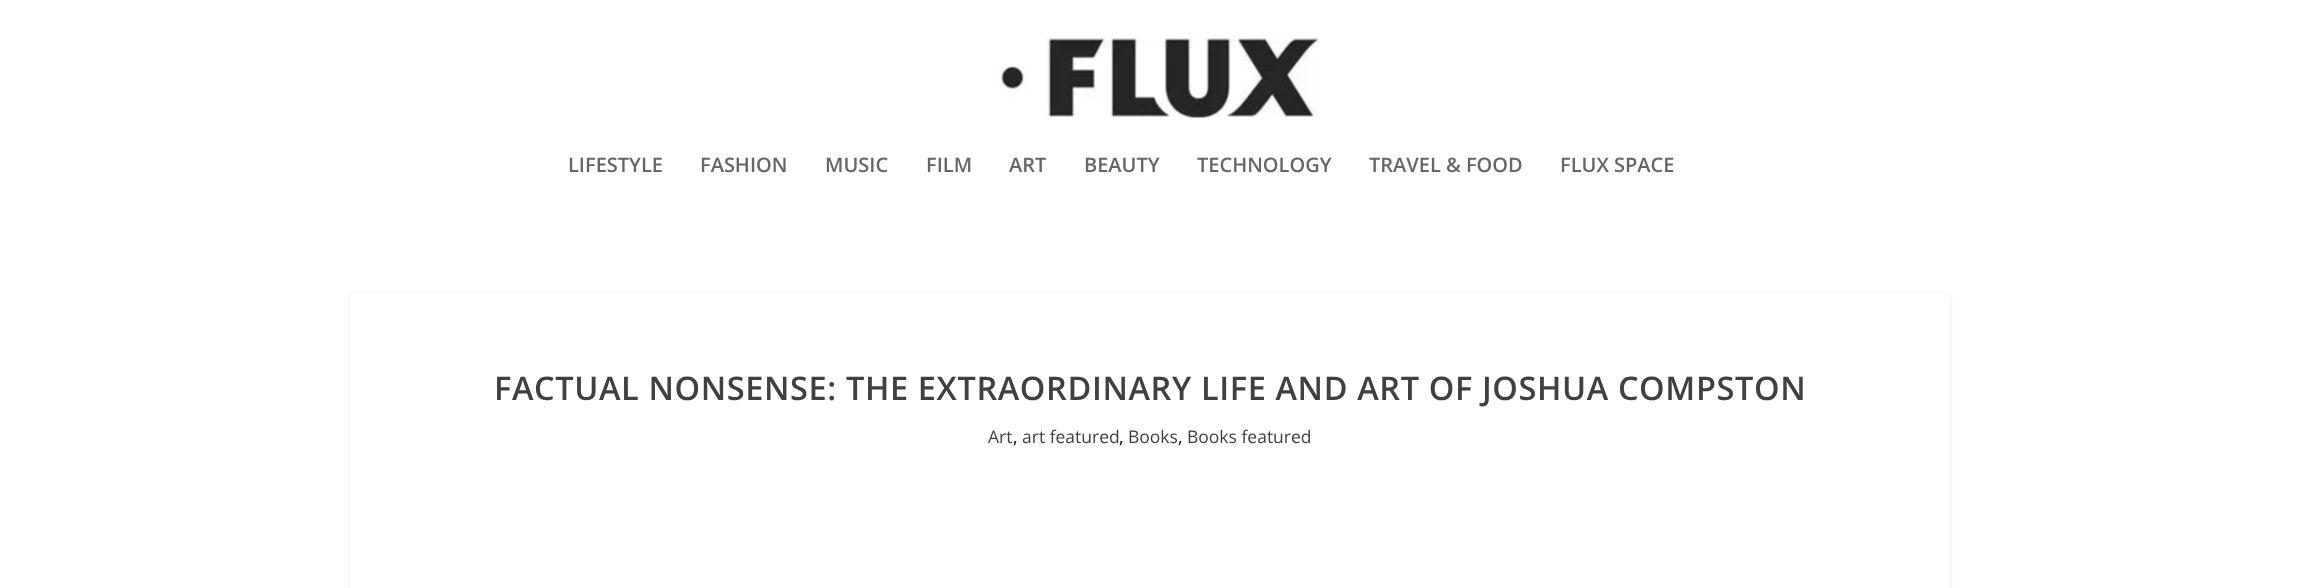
(async () => {
const canvas = document.querySelector("canvas")
canvas.width = 2300
canvas.height = 588
const c = canvas.getContext("2d")
c.miterLimit = 4
c.fontKerning = "normal"
function T(s,x,y){c.fillText(s,x,y)}
function R(x,y,w,h){c.fillRect(x,y,w,h)}
async function I(src,x,y,w,h){const img=new Image();img.src=src;await img.decode();c.drawImage(img,x,y,w,h)}
let path
c.fillStyle="#fff"
R(0,0,2300,588)
await I("1.png",999,37,320,81)
c.font="600 20px Open Sans"
c.fillStyle="#666"
T("LIFESTYLE",568,172)
T("FASHION",700,172)
T("MUSIC",825,172)
T("FILM",926,172)
T("ART",1009,172)
T("BEAUTY",1084,172)
T("TECHNOLOGY",1197,172)
T("TRAVEL & FOOD",1369,172)
T("FLUX SPACE",1560,172)
c.save()
path = new Path2D("M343 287h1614v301h-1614zm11 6h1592c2 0 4 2 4 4v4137c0 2-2 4-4 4h-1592c-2 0-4-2-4-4v-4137c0-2 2-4 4-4z")
c.clip(path,"evenodd")
c.fillStyle="#0000001a"
c.filter="blur(2px)"
c.beginPath()
c.roundRect(350,294,1600,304,4)
c.fill()
c.filter="none"
c.restore()
c.letterSpacing="0.62px"
c.font="600 32.5px Open Sans"
c.fillStyle="#404040"
T("FACTUAL NONSENSE: THE EXTRAORDINARY LIFE AND ART OF JOSHUA COMPSTON",494,400)
c.letterSpacing="0px"
c.font="17.5px Open Sans"
T("Art",988,443)
c.fillStyle="#000"
T(",",1013,443)
c.fillStyle="#404040"
T("art featured",1022,443)
c.fillStyle="#000"
T(",",1119,443)
c.fillStyle="#404040"
T("Books",1128,443)
c.fillStyle="#000"
T(",",1178,443)
c.fillStyle="#404040"
T("Books featured",1187,443)
})()
